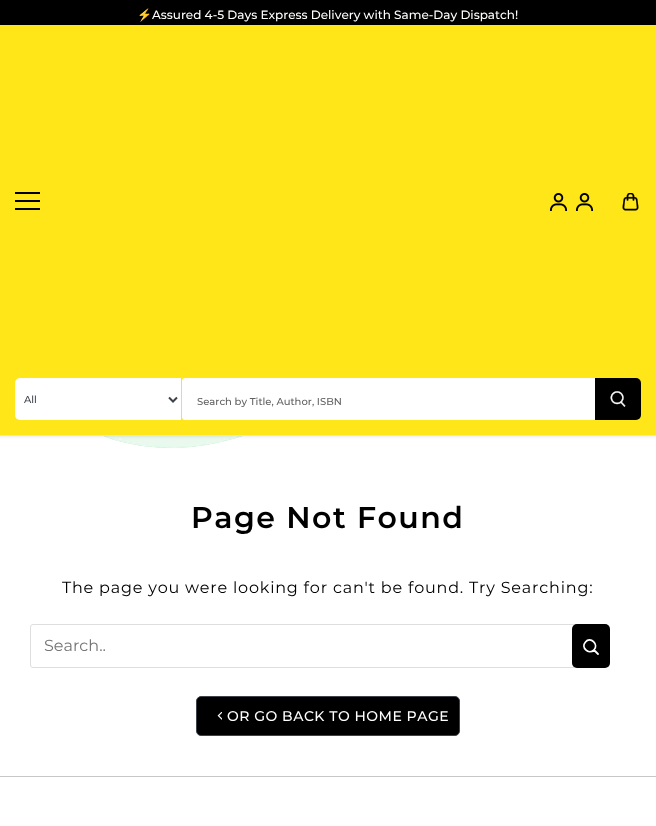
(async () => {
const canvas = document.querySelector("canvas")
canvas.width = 656
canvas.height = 826
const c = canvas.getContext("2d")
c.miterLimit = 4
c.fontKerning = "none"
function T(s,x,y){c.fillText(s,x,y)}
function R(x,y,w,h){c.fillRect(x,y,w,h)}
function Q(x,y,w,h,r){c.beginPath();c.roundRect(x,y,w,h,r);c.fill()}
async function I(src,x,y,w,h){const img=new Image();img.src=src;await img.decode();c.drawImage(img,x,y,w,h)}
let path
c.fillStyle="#fff"
R(0,0,656,826)
c.fillStyle="#000"
R(0,0,656,25)
c.font="12px Noto Color Emoji"
c.fillStyle="#fff"
T("⚡",137,19)
c.font="500 12px Montserrat"
T("Assured 4-5 Days Express Delivery with Same-Day Dispatch!",152,19)
await I("4.png",103,436,140,12)
c.fillStyle="#00000014"
c.filter="blur(1.5px)"
c.beginPath()
c.rect(-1,24,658,413)
c.fill()
c.filter="none"
c.fillStyle="#ffe619"
R(0,25,656,410)
c.fillStyle="#e1e5e9"
R(0,435,656,1)
c.fillStyle="#000"
R(15,192,25,2)
R(15,200,25,2)
R(15,208,25,2)
await I("1.png",549,193,19,18)
await I("1.png",575,193,19,18)
await I("2.png",622,193,17,18)
c.fillStyle="#fff"
c.beginPath()
c.roundRect(15,378,167,42,[5,0,0,5])
c.fill()
c.fillStyle="#d4d4d4"
R(181,378,1,42)
path = new Path2D("M169 397.5l4 4l4-4")
c.strokeStyle="#3e434b"
c.lineWidth=2
c.stroke(path)
c.font="500 10px Montserrat"
c.fillStyle="#3e434b"
T("All",24,403)
c.fillStyle="#fff"
c.beginPath()
c.roundRect(182,378,414,42,[3,0,0,3])
c.fill()
c.fillStyle="#616161"
T("Search by Title, Author, ISBN",197,405)
c.fillStyle="#000"
c.beginPath()
c.roundRect(595,378,46,42,[0,5,5,0])
c.fill()
await I("3.png",610,391,16,16)
c.letterSpacing="1.5px"
c.font="600 30px Montserrat"
T("Page Not Found",191,528)
c.letterSpacing="0.8px"
c.font="16px Montserrat"
T("The page you were looking for can't be found. Try Searching:",62,593)
c.beginPath()
c.roundRect(30.5,624.5,557,43,2.5)
c.strokeStyle="#dedede"
c.lineWidth=1
c.stroke()
c.letterSpacing="0px"
c.fillStyle="#757575"
T("Search..",44,651)
c.fillStyle="#000"
Q(572,624,38,44,5)
path = new Path2D("M594 650c-5.5 5-13.5-2.5-8.5-8c5-6 13.5 2.5 8.5 8l4 4z")
c.strokeStyle="#fff"
c.lineWidth=1.8
c.lineCap="round"
c.lineJoin="round"
c.stroke(path)
c.beginPath()
c.roundRect(196.5,696.5,263,39,4.5)
c.fill()
c.strokeStyle="#3e434b"
c.lineWidth=1
c.lineJoin="miter"
c.stroke()
await I("5.png",217,712,5,8)
c.letterSpacing="0.5px"
c.font="500 14px Montserrat"
c.fillStyle="#fff"
T("OR GO BACK TO HOME PAGE",227,721)
c.fillStyle="#c7c7c7"
R(0,776,656,1)
})()
